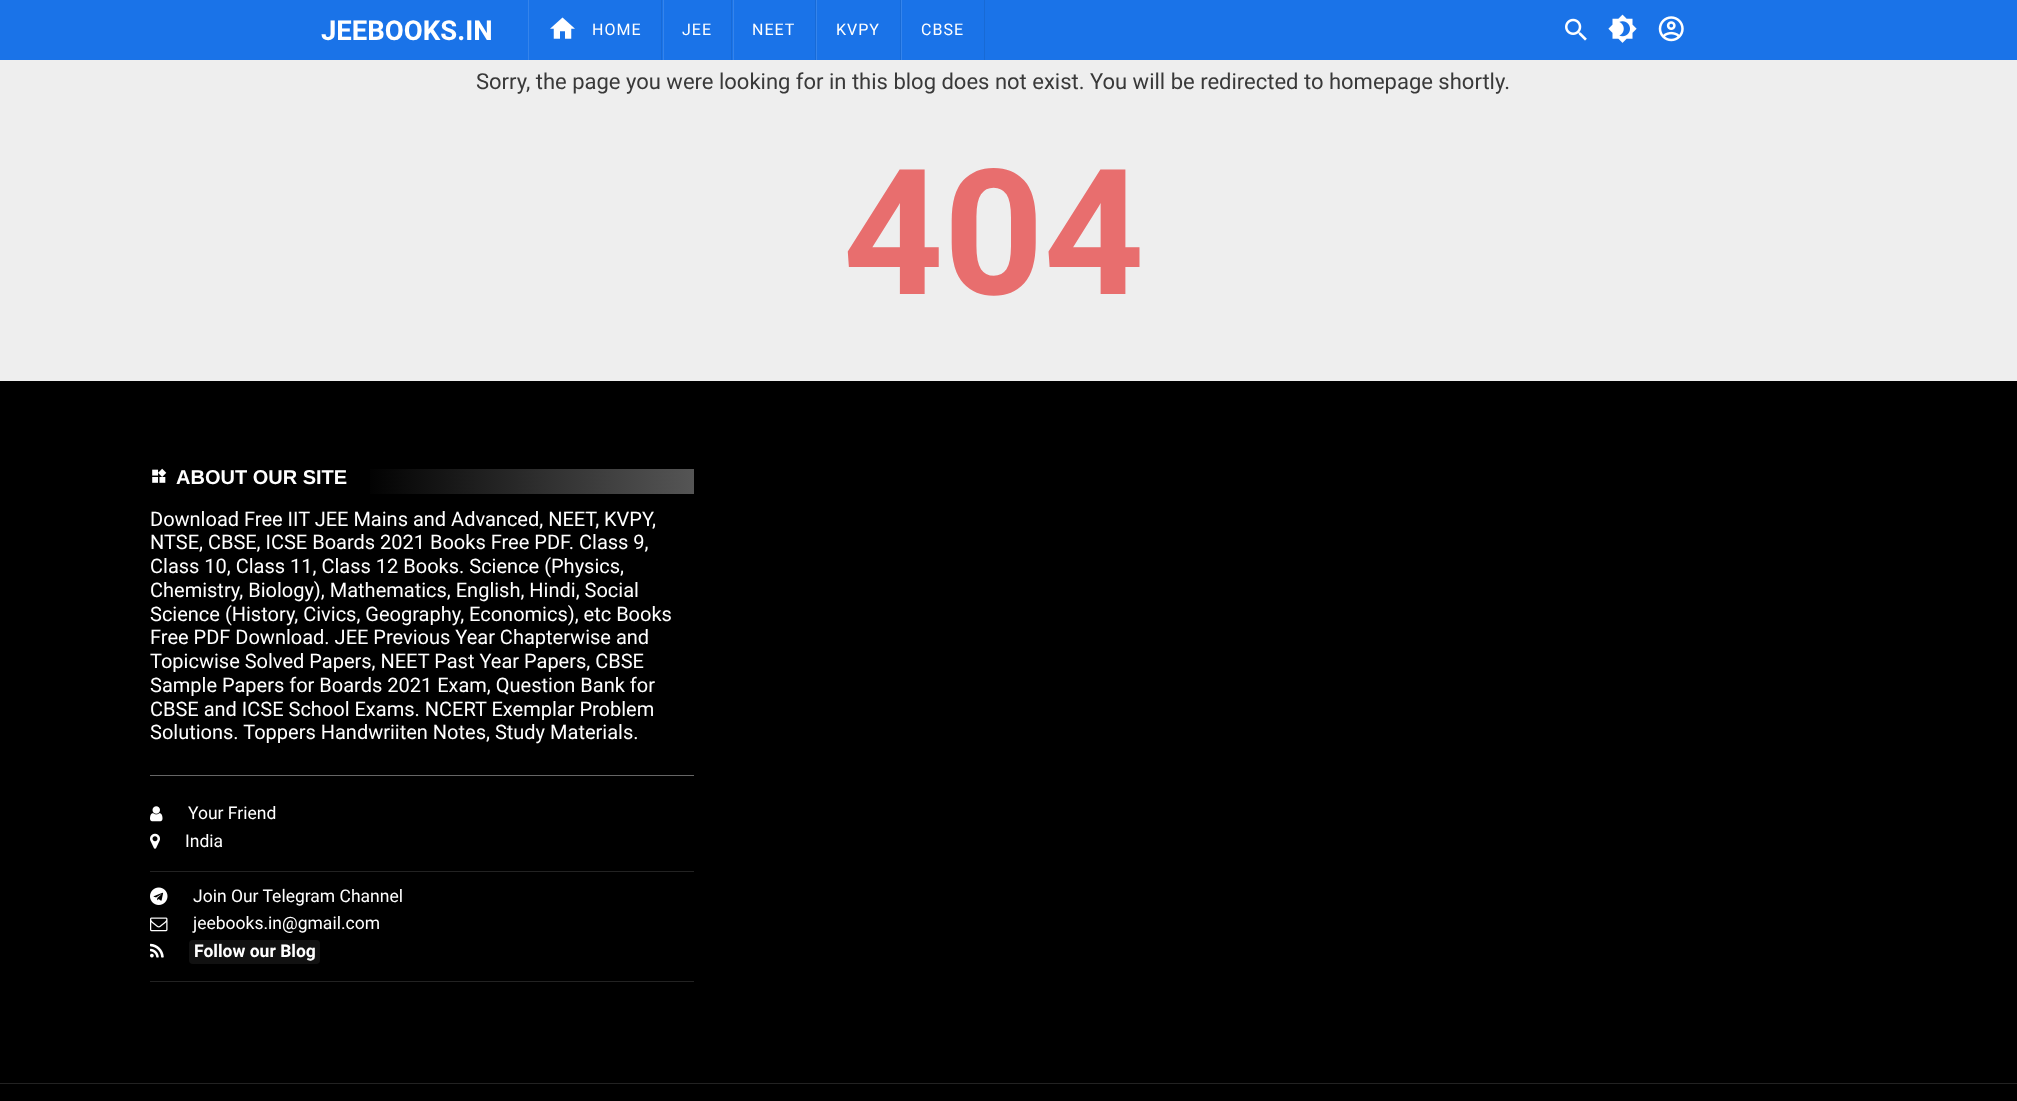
(async () => {
const canvas = document.querySelector("canvas")
canvas.width = 2017
canvas.height = 1101
const c = canvas.getContext("2d")
c.miterLimit = 4
c.fontKerning = "normal"
function T(s,x,y){c.fillText(s,x,y)}
function R(x,y,w,h){c.fillRect(x,y,w,h)}
function Q(x,y,w,h,r){c.beginPath();c.roundRect(x,y,w,h,r);c.fill()}
async function I(src,x,y,w,h){const img=new Image();img.src=src;await img.decode();c.drawImage(img,x,y,w,h)}
let gradient
c.fillStyle="#eee"
R(0,0,2017,1101)
c.fillStyle="#1a73e8"
R(0,0,2017,60)
c.font="bold 27.5px Roboto"
c.fillStyle="#fff"
T("JEEBOOKS.IN",321,40)
c.fillStyle="#186ad5"
R(661,0,1,60)
c.fillStyle="#3584eb"
R(528,0,1,60)
await I("1.png",550,17,25,22)
c.letterSpacing="1px"
c.font="16px Roboto"
c.fillStyle="#fff"
T("HOME",592,35)
c.fillStyle="#186ad5"
R(731,0,1,60)
c.fillStyle="#3584eb"
R(663,0,1,60)
c.fillStyle="#fff"
T("JEE",682,35)
c.fillStyle="#186ad5"
R(815,0,1,60)
c.fillStyle="#3584eb"
R(733,0,1,60)
c.fillStyle="#fff"
T("NEET",752,35)
c.fillStyle="#186ad5"
R(900,0,1,60)
c.fillStyle="#3584eb"
R(816,0,1,60)
c.fillStyle="#fff"
T("KVPY",836,35)
c.fillStyle="#186ad5"
R(984,0,1,60)
c.fillStyle="#3584eb"
R(901,0,1,60)
c.fillStyle="#fff"
T("CBSE",921,35)
await I("2.png",1565,18,22,23)
await I("3.png",1608,14,29,29)
await I("4.png",1658,16,26,26)
c.letterSpacing="0px"
c.font="22px Roboto"
c.fillStyle="#393939"
T("Sorry, the page you were looking for in this blog does not exist. You will be redirected to homepage shortly.",476,89)
c.font="bold 175px Roboto"
c.fillStyle="#e86e6e"
T("404",843,294)
c.fillStyle="#000"
R(0,381,2017,702)
await I("5.png",152,468,15,15)
c.font="bold 20px Liberation Sans"
c.fillStyle="#fff"
T("ABOUT OUR SITE",176,484)
gradient = c.createLinearGradient(360,481,904,481)
gradient.addColorStop(0,"#000")
gradient.addColorStop(.5,"#464646")
gradient.addColorStop(1,"#888")
c.fillStyle = gradient
R(370,469,324,25)
c.font="20px Roboto"
c.fillStyle="#fff"
T("Download Free IIT JEE Mains and Advanced, NEET, KVPY,",150,526)
T("NTSE, CBSE, ICSE Boards 2021 Books Free PDF. Class 9,",150,549)
T("Class 10, Class 11, Class 12 Books. Science (Physics,",150,573)
T("Chemistry, Biology), Mathematics, English, Hindi, Social",150,597)
T("Science (History, Civics, Geography, Economics), etc Books",150,621)
T("Free PDF Download. JEE Previous Year Chapterwise and",150,644)
T("Topicwise Solved Papers, NEET Past Year Papers, CBSE",150,668)
T("Sample Papers for Boards 2021 Exam, Question Bank for",150,692)
T("CBSE and ICSE School Exams. NCERT Exemplar Problem",150,716)
T("Solutions. Toppers Handwriiten Notes, Study Materials.",150,739)
c.fillStyle="#666"
R(150,775,544,1)
c.fillStyle="#222"
R(150,871,544,1)
await I("6.png",150,806,13,16)
c.font="17.5px Roboto"
c.fillStyle="#fff"
T("Your Friend",188,819)
await I("7.png",150,833,10,16)
T("India",185,847)
c.fillStyle="#222"
R(150,981,544,1)
await I("8.png",150,887,18,18)
c.fillStyle="#fff"
T("Join Our Telegram Channel",193,902)
await I("9.png",150,917,18,15)
T("jeebooks.in@gmail.com",193,929)
await I("10.png",150,943,14,15)
gradient = c.createLinearGradient(189,988,714,988)
gradient.addColorStop(0,"#111")
gradient.addColorStop(.38,"#111")
gradient.addColorStop(.5,"#1a73e8")
gradient.addColorStop(.62,"#111")
gradient.addColorStop(1,"#111")
c.fillStyle = gradient
Q(189,940,131,24,4)
c.font="bold 17.5px Roboto"
c.fillStyle="#fff"
T("Follow our Blog",194,957)
c.fillStyle="#000"
R(0,1084,2017,17)
c.fillStyle="#222"
R(0,1083,2017,1)
})()
